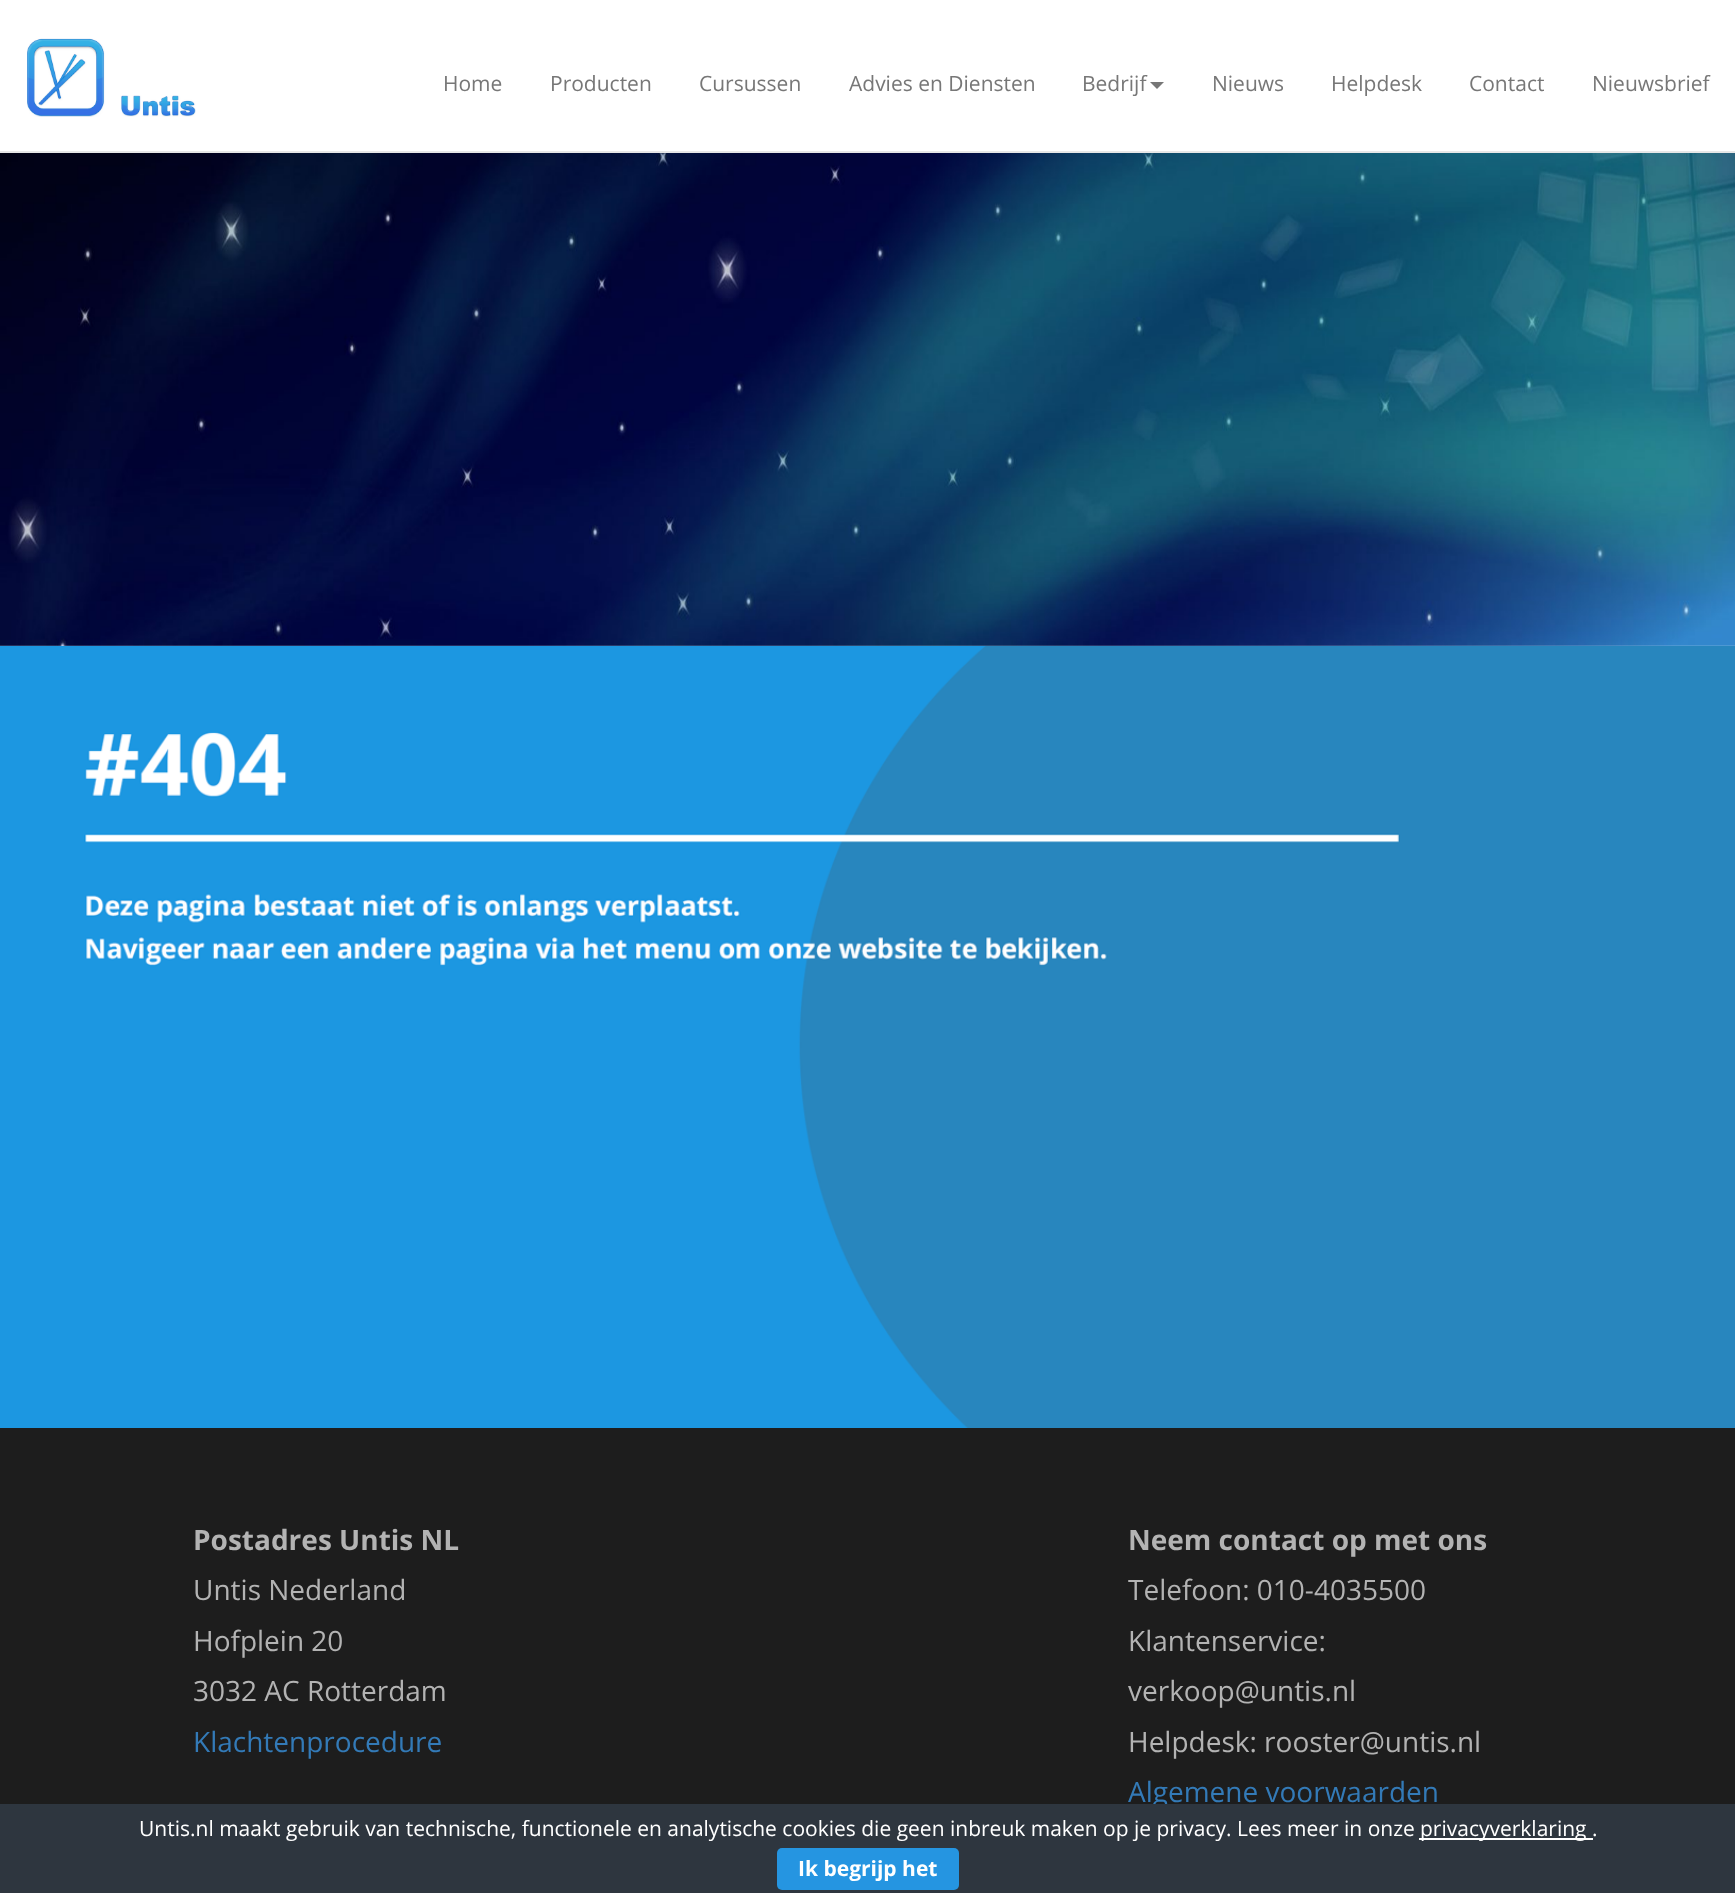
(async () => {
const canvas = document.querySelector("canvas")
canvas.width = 1735
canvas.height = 1893
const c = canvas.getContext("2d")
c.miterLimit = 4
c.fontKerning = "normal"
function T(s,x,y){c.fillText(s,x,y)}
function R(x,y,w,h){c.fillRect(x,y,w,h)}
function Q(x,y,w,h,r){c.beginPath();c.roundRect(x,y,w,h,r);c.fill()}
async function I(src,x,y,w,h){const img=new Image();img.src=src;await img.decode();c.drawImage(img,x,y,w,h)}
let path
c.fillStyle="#fff"
R(0,0,1735,1893)
c.fillStyle="#e7e7e7"
R(0,151,1735,2)
await I("1.png",27,38,169,79)
c.font="21px Open Sans"
c.fillStyle="#777"
T("Home",443,91)
T("Producten",550,91)
T("Cursussen",699,91)
T("Advies en Diensten",849,91)
T("Bedrijf",1082,91)
path = new Path2D("M1150 82h14l-7 7z")
c.fill(path)
T("Nieuws",1212,91)
T("Helpdesk",1331,91)
T("Contact",1469,91)
T("Nieuwsbrief",1592,91)
await I("3.png",0,645,1735,783)
await I("2.png",0,153,1735,493)
c.fillStyle="#1d1d1d"
R(0,1428,1735,376)
c.font="bold 28px Open Sans"
c.fillStyle="#b3b3b3"
T("Postadres Untis NL",193,1550)
c.font="28px Open Sans"
T("Untis Nederland",193,1600)
T("Hofplein 20",193,1651)
T("3032 AC Rotterdam",193,1701)
c.fillStyle="#337ab7"
T("Klachtenprocedure",193,1752)
c.font="bold 28px Open Sans"
c.fillStyle="#b3b3b3"
T("Neem contact op met ons",1128,1550)
c.font="28px Open Sans"
T("Telefoon: 010-4035500",1128,1600)
T("Klantenservice:",1128,1651)
T("verkoop@untis.nl",1128,1701)
T("Helpdesk: rooster@untis.nl",1128,1752)
c.fillStyle="#337ab7"
T("Algemene voorwaarden",1128,1802)
c.fillStyle="#2e363f"
R(0,1804,1735,89)
c.font="21px Open Sans"
c.fillStyle="#fff"
T("Untis.nl maakt gebruik van technische, functionele en analytische cookies die geen inbreuk maken op je privacy. Lees meer in onze",139,1836)
R(1419,1838,174,2)
T("privacyverklaring",1420,1836)
T(".",1592,1836)
c.fillStyle="#2595e1"
Q(777,1848,182,42,5)
c.font="bold 21px Open Sans"
c.fillStyle="#fff"
T("Ik begrijp het",798,1876)
})()
